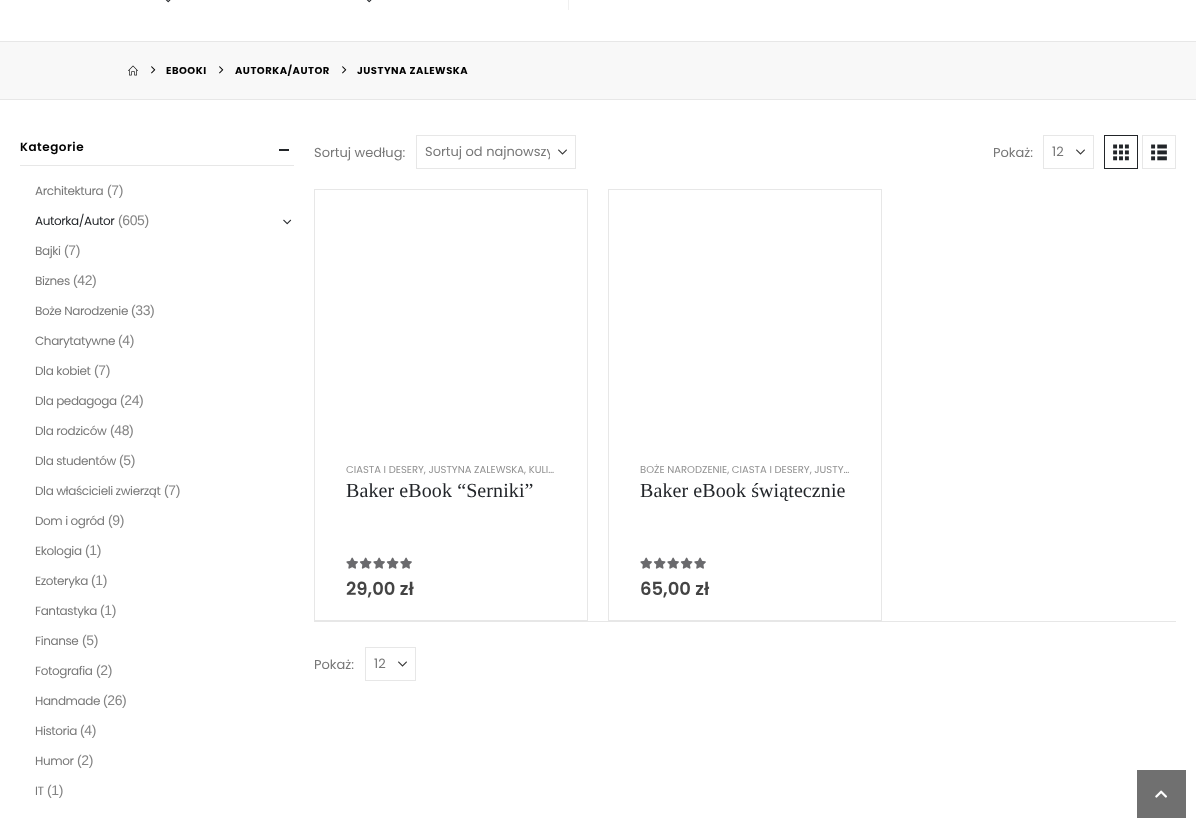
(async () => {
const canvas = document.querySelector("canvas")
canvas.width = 1196
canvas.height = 818
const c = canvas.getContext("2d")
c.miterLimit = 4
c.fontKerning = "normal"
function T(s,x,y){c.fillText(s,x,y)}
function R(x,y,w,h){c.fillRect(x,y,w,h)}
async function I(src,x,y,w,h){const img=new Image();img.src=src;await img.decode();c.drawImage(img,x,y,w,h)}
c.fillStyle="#fff"
R(0,0,1196,818)
await I("1.png",165,0,6,3)
await I("1.png",366,0,6,3)
c.fillStyle="#f0f0f0"
R(568,0,1,10)
c.fillStyle="#f8f8f8"
R(0,42,1196,57)
c.fillStyle="#e7e7e7"
R(0,41,1196,1)
R(0,99,1196,1)
await I("2.png",128,65,10,11)
await I("3.png",151,66,5,8)
c.letterSpacing="0.5px"
c.font="bold 10px Poppins"
c.fillStyle="#000"
T("EBOOKI",166,74)
await I("3.png",219,66,5,8)
T("AUTORKA/AUTOR",235,74)
await I("3.png",342,66,5,8)
T("JUSTYNA ZALEWSKA",357,74)
c.fillStyle="#e7e7e7"
R(20,165,274,1)
c.font="600 12px Poppins"
c.fillStyle="#000"
T("Kategorie",20,151)
c.fillStyle="#222529"
R(279,149,10,2)
c.letterSpacing="-0.4px"
c.font="12px Poppins"
c.fillStyle="#777"
T("Architektura",35,195)
c.font="14px Liberation Sans"
c.fillStyle="#848484"
T("(7)",107,195)
c.font="12px Poppins"
c.fillStyle="#222529"
T("Autorka/Autor",35,225)
c.font="14px Liberation Sans"
c.fillStyle="#848484"
T("(605)",118,225)
await I("4.png",283,219,9,6)
c.font="12px Poppins"
c.fillStyle="#777"
T("Bajki",35,255)
c.font="14px Liberation Sans"
c.fillStyle="#848484"
T("(7)",64,255)
c.font="12px Poppins"
c.fillStyle="#777"
T("Biznes",35,285)
c.font="14px Liberation Sans"
c.fillStyle="#848484"
T("(42)",73,285)
c.font="12px Poppins"
c.fillStyle="#777"
T("Boże Narodzenie",35,315)
c.font="14px Liberation Sans"
c.fillStyle="#848484"
T("(33)",131,315)
c.font="12px Poppins"
c.fillStyle="#777"
T("Charytatywne",35,345)
c.font="14px Liberation Sans"
c.fillStyle="#848484"
T("(4)",118,345)
c.font="12px Poppins"
c.fillStyle="#777"
T("Dla kobiet",35,375)
c.font="14px Liberation Sans"
c.fillStyle="#848484"
T("(7)",94,375)
c.font="12px Poppins"
c.fillStyle="#777"
T("Dla pedagoga",35,405)
c.font="14px Liberation Sans"
c.fillStyle="#848484"
T("(24)",120,405)
c.font="12px Poppins"
c.fillStyle="#777"
T("Dla rodziców",35,435)
c.font="14px Liberation Sans"
c.fillStyle="#848484"
T("(48)",110,435)
c.font="12px Poppins"
c.fillStyle="#777"
T("Dla studentów",35,465)
c.font="14px Liberation Sans"
c.fillStyle="#848484"
T("(5)",119,465)
c.font="12px Poppins"
c.fillStyle="#777"
T("Dla właścicieli zwierząt",35,495)
c.font="14px Liberation Sans"
c.fillStyle="#848484"
T("(7)",164,495)
c.font="12px Poppins"
c.fillStyle="#777"
T("Dom i ogród",35,525)
c.font="14px Liberation Sans"
c.fillStyle="#848484"
T("(9)",108,525)
c.font="12px Poppins"
c.fillStyle="#777"
T("Ekologia",35,555)
c.font="14px Liberation Sans"
c.fillStyle="#848484"
T("(1)",85,555)
c.font="12px Poppins"
c.fillStyle="#777"
T("Ezoteryka",35,585)
c.font="14px Liberation Sans"
c.fillStyle="#848484"
T("(1)",91,585)
c.font="12px Poppins"
c.fillStyle="#777"
T("Fantastyka",35,615)
c.font="14px Liberation Sans"
c.fillStyle="#848484"
T("(1)",100,615)
c.font="12px Poppins"
c.fillStyle="#777"
T("Finanse",35,645)
c.font="14px Liberation Sans"
c.fillStyle="#848484"
T("(5)",82,645)
c.font="12px Poppins"
c.fillStyle="#777"
T("Fotografia",35,675)
c.font="14px Liberation Sans"
c.fillStyle="#848484"
T("(2)",96,675)
c.font="12px Poppins"
c.fillStyle="#777"
T("Handmade",35,705)
c.font="14px Liberation Sans"
c.fillStyle="#848484"
T("(26)",103,705)
c.font="12px Poppins"
c.fillStyle="#777"
T("Historia",35,735)
c.font="14px Liberation Sans"
c.fillStyle="#848484"
T("(4)",80,735)
c.font="12px Poppins"
c.fillStyle="#777"
T("Humor",35,765)
c.font="14px Liberation Sans"
c.fillStyle="#848484"
T("(2)",77,765)
c.font="12px Poppins"
c.fillStyle="#777"
T("IT",35,795)
c.font="14px Liberation Sans"
c.fillStyle="#848484"
T("(1)",47,795)
c.letterSpacing="0px"
c.font="13px Poppins"
c.fillStyle="#777"
T("Sortuj według:",314,157)
await I("5.png",558,149,9,6)
c.strokeStyle="#e7e7e7"
c.strokeRect(416.5,135.5,159,33)
c.save()
c.beginPath()
c.rect(425,143,125,18)
c.clip()
T("Sortuj od najnowszy",425,156)
c.restore()
T("Pokaż:",993,157)
await I("5.png",1076,149,9,6)
c.strokeRect(1043.5,135.5,50,33)
T("12",1052,156)
c.strokeStyle="#222529"
c.strokeRect(1104.5,135.5,33,33)
await I("6.png",1113,144,16,17)
c.strokeStyle="#e7e7e7"
c.strokeRect(1142.5,135.5,33,33)
await I("7.png",1151,144,16,17)
c.strokeRect(314.5,189.5,273,431)
c.font="10px Poppins"
c.fillStyle="#929292"
T("CIASTA I DESERY, JUSTYNA ZALEWSKA, KULI…",346,473)
c.letterSpacing="0.1px"
c.font="20px Liberation Serif"
c.fillStyle="#222529"
T("Baker eBook “Serniki”",346,497)
await I("8.png",346,557,66,12)
await I("9.png",346,557,66,12)
c.letterSpacing="0px"
c.font="600 18px Poppins"
c.fillStyle="#444"
T("29,00 zł",346,595)
c.strokeRect(608.5,189.5,273,431)
c.font="10px Poppins"
c.fillStyle="#929292"
T("BOŻE NARODZENIE, CIASTA I DESERY, JUSTY…",640,473)
c.letterSpacing="0.1px"
c.font="20px Liberation Serif"
c.fillStyle="#222529"
T("Baker eBook świątecznie",640,497)
await I("8.png",640,557,66,12)
await I("9.png",640,557,66,12)
c.letterSpacing="0px"
c.font="600 18px Poppins"
c.fillStyle="#444"
T("65,00 zł",640,595)
c.fillStyle="#e7e7e7"
R(314,621,862,1)
c.font="13px Poppins"
c.fillStyle="#777"
T("Pokaż:",314,669)
await I("5.png",398,661,9,6)
c.strokeRect(365.5,647.5,50,33)
T("12",374,668)
c.fillStyle="#707070"
R(1137,770,49,48)
await I("10.png",1155,790,12,8)
})()
